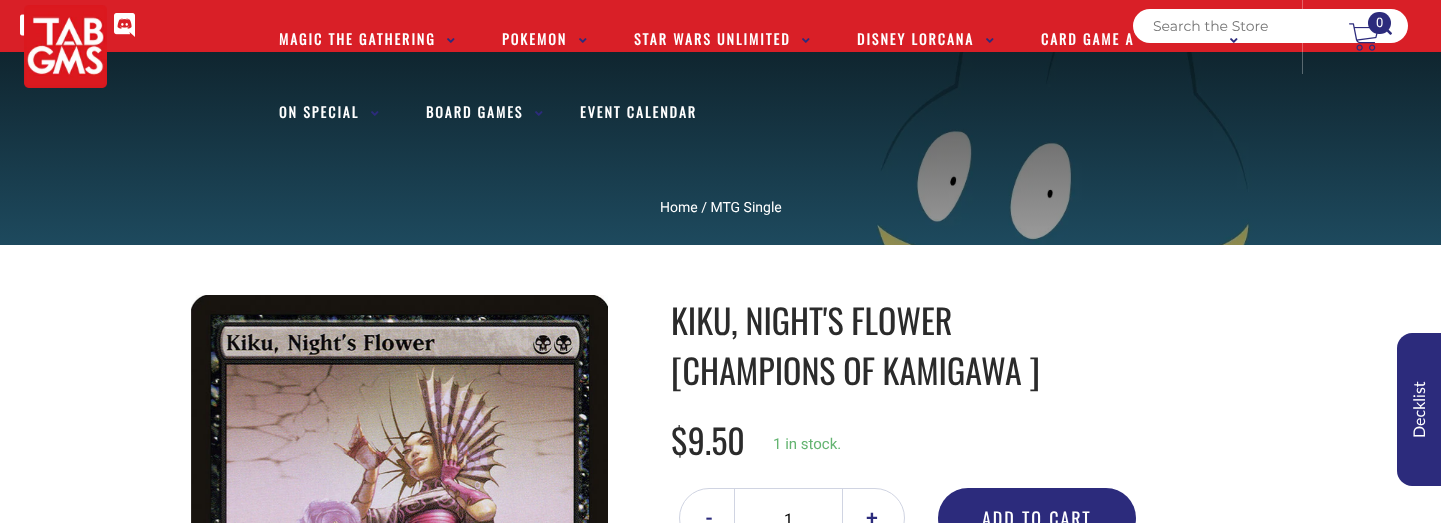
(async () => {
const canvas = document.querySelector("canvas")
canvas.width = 1441
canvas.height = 523
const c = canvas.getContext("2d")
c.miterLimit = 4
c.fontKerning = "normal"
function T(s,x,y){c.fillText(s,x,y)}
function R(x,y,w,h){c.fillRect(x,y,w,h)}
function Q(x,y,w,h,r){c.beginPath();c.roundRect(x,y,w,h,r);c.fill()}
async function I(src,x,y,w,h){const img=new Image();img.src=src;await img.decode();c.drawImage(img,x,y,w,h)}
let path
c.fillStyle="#fff"
R(0,0,1441,523)
c.fillStyle="#d91f27"
R(0,0,1441,52)
await I("7.png",20,14,5,22)
await I("10.png",0,52,1441,193)
await I("1.png",24,5,83,83)
c.fillStyle="#fff"
Q(1133,9,275,34,17)
c.fillStyle="#ffffff4d"
R(1302,0,1,74)
await I("2.png",1349,23,29,28)
await I("9.png",1386,29,6,6)
c.fillStyle="#2c2b7c"
Q(1368,12,23,22,11)
c.font="13px Roboto"
c.fillStyle="#fff"
T("0",1376,27)
c.letterSpacing="2px"
c.font="bold 14px Oswald"
T("MAGIC THE GATHERING",279,45)
await I("3.png",447,38,8,5)
T("POKEMON",502,45)
await I("3.png",579,38,8,5)
T("STAR WARS UNLIMITED",634,45)
await I("3.png",802,38,8,5)
T("DISNEY LORCANA",857,45)
await I("3.png",986,38,8,5)
T("CARD GAME A",1041,45)
await I("4.png",1230,38,8,5)
T("ON SPECIAL",279,118)
await I("5.png",371,111,8,5)
T("BOARD GAMES",426,118)
await I("6.png",535,111,8,5)
T("EVENT CALENDAR",580,118)
await I("8.png",114,13,21,24)
c.letterSpacing="0px"
c.font="14px Montserrat"
c.fillStyle="#757575"
T("Search the Store",1153,31)
c.font="14px Roboto"
c.fillStyle="#fff"
T("Home / MTG Single",660,212)
await I("11.png",191,295,417,228)
c.font="34px Oswald"
c.fillStyle="#2b2b2b"
T("KIKU, NIGHT'S FLOWER",671,335)
T("[CHAMPIONS OF KAMIGAWA ]",671,385)
T("$9.50",671,455)
c.font="15px Roboto"
c.fillStyle="#64b471"
T("1 in stock.",773,449)
c.beginPath()
c.roundRect(679.5,488.5,225,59,29.5)
c.strokeStyle="#d0d4e2"
c.stroke()
c.font="bold 20px Roboto"
c.fillStyle="#2c2b7c"
T("-",706,525)
c.fillStyle="#d0d4e2"
R(842,489,1,34)
R(734,489,1,34)
c.font="16px Roboto"
c.fillStyle="#000"
T("1",784,525)
c.font="bold 20px Roboto"
c.fillStyle="#2c2b7c"
T("+",866,525)
Q(938,488,198,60,30)
c.letterSpacing="2px"
c.font="18px Oswald"
c.fillStyle="#fff"
T("ADD TO CART",982,526)
c.fillStyle="#2c2b7c"
path = new Path2D("M1397 471v-123c0-8 7-15 15-15h29v153h-29c-8 0-15-7-15-15z")
c.fill(path)
c.letterSpacing="0px"
c.font="16px Lato"
c.fillStyle="#fff"
c.save()
c.translate(1425,438)
c.rotate(-90 * Math.PI / 180)
c.fillText("Decklist",0,0)
c.restore()
})()
